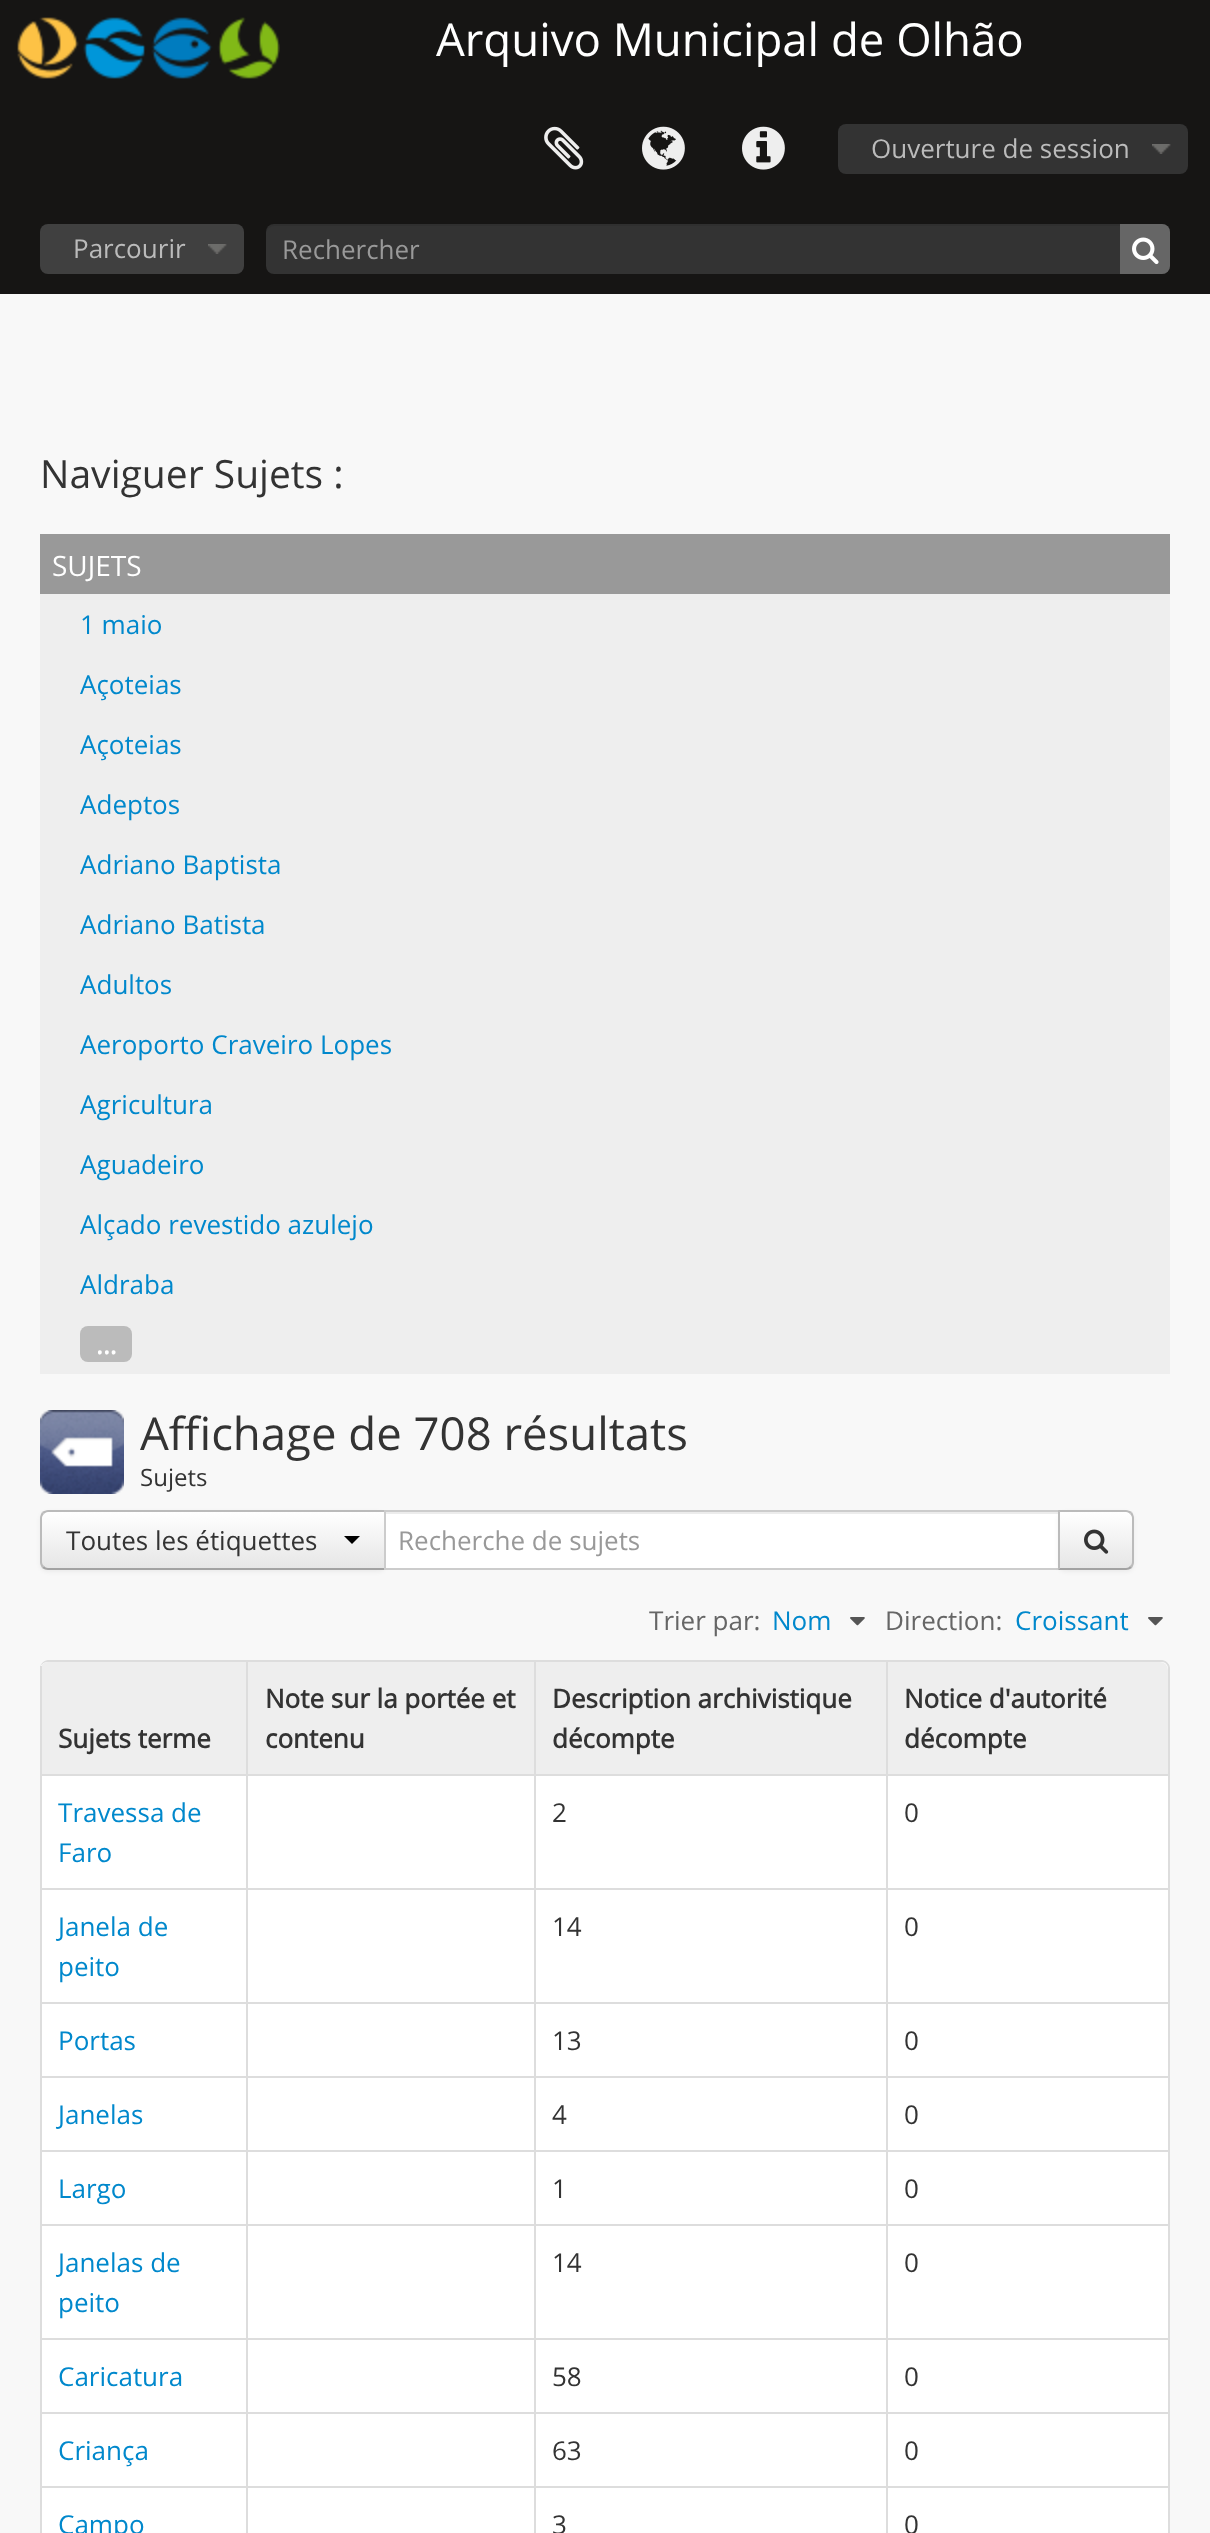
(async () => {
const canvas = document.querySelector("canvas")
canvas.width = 1210
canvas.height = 2533
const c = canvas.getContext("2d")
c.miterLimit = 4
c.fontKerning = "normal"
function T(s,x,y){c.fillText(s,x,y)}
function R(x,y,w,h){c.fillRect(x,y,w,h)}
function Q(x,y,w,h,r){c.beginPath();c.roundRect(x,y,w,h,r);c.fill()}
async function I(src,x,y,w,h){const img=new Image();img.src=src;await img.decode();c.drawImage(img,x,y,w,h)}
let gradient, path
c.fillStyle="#f8f8f8"
R(0,0,1210,2533)
c.fillStyle="#161514"
R(0,0,1210,294)
await I("1.png",17,17,263,62)
c.font="45.5px Open Sans"
c.fillStyle="#fff"
T("Arquivo Municipal de Olhão",436,56)
await I("2.png",544,126,40,44)
await I("3.png",642,126,43,44)
await I("4.png",742,126,43,44)
c.fillStyle="#333"
Q(838,124,350,50,8)
await I("5.png",1152,144,19,10)
c.font="26px Open Sans"
c.fillStyle="#bbb"
T("Ouverture de session",871,158)
c.fillStyle="#404040"
Q(40,224,204,50,8)
await I("6.png",208,244,19,10)
c.fillStyle="#bbb"
T("Parcourir",73,258)
c.fillStyle="#333"
Q(266,224,904,50,8)
c.fillStyle="#00000012"
path = new Path2D("M274 226h888c4 0 8 4 8 8v-2c0-4-4-8-8-8h-888c-4 0-8 4-8 8v2c0-4 4-8 8-8z")
c.fill(path)
c.fillStyle="#999"
T("Rechercher",282,259)
c.fillStyle="#666"
c.beginPath()
c.roundRect(1120,224,50,50,[0,8,8,0])
c.fill()
await I("7.png",1132,237,27,28)
c.font="39px Open Sans"
c.fillStyle="#333"
T("Naviguer Sujets :",40,488)
c.fillStyle="#eee"
R(40,594,1130,780)
c.fillStyle="#999"
R(40,534,1130,60)
c.font="28px Open Sans"
c.fillStyle="#fff"
T("SUJETS",52,576)
c.font="26px Open Sans"
c.fillStyle="#08c"
T("1 maio",80,634)
T("Açoteias",80,694)
T("Açoteias",80,754)
T("Adeptos",80,814)
T("Adriano Baptista",80,874)
T("Adriano Batista",80,934)
T("Adultos",80,994)
T("Aeroporto Craveiro Lopes",80,1054)
T("Agricultura",80,1114)
T("Aguadeiro",80,1174)
T("Alçado revestido azulejo",80,1234)
T("Aldraba",80,1294)
c.fillStyle="#bbb"
Q(80,1326,52,36,8)
c.font="bold 26px Open Sans"
c.fillStyle="#fff"
T("...",96,1354)
await I("8.png",40,1410,84,84)
c.font="45.5px Open Sans"
c.fillStyle="#333"
T("Affichage de 708 résultats",140,1450)
c.font="24px Open Sans"
T("Sujets",140,1486)
c.fillStyle="#0000000d"
c.filter="blur(2px)"
c.beginPath()
c.roundRect(40,1512,346,60,8)
c.fill()
c.filter="none"
c.save()
c.beginPath()
c.roundRect(40,1510,346,60,[8,0,0,8])
c.clip()
gradient = c.createLinearGradient(213,1512,213,1568)
gradient.addColorStop(0,"#fff")
gradient.addColorStop(1,"#e6e6e6")
c.fillStyle = gradient
R(40,1512,344,56)
c.restore()
c.fillStyle="#bbb"
path = new Path2D("M48 1510c-2 0-4 1-6 2l2 2c1-1 2-2 4-2h336l2-2z")
c.fill(path)
c.fillStyle="#a2a2a2"
path = new Path2D("M386 1570l-2-2h-336c-2 0-3-1-4-2l-2 2c2 1 4 2 6 2z")
c.fill(path)
c.fillStyle="#bbb"
path = new Path2D("M40 1518v44c0 2 1 4 2 6l2-2c-1-1-2-2-2-4v-44c0-2 1-3 2-4l-2-2c-1 2-2 4-2 6z")
c.fill(path)
c.font="26px Open Sans"
c.fillStyle="#333"
T("Toutes les étiquettes",66,1550)
c.fillStyle="#000"
path = new Path2D("M344 1536h16l-8 8z")
c.fill(path)
c.fillStyle="#fff"
R(386,1514,672,54)
c.fillStyle="#ececec"
R(386,1512,674,2)
c.strokeStyle="#ccc"
c.lineWidth=2
c.strokeRect(385,1511,676,58)
c.fillStyle="#999"
T("Recherche de sujets",398,1550)
c.fillStyle="#0000000d"
c.filter="blur(2px)"
c.beginPath()
c.roundRect(1058,1512,76,60,8)
c.fill()
c.filter="none"
c.save()
c.beginPath()
c.roundRect(1058,1510,76,60,[0,8,8,0])
c.clip()
gradient = c.createLinearGradient(1096,1512,1096,1568)
gradient.addColorStop(0,"#fff")
gradient.addColorStop(1,"#e6e6e6")
c.fillStyle = gradient
R(1060,1512,74,56)
c.restore()
c.fillStyle="#bbb"
path = new Path2D("M1058 1510l2 2h66c2 0 3 1 4 2l2-2c-2-1-4-2-6-2z")
c.fill(path)
path = new Path2D("M1134 1562v-44c0-2-1-4-2-6l-2 2c1 1 2 2 2 4v44c0 2-1 3-2 4l2 2c1-2 2-4 2-6z")
c.fill(path)
c.fillStyle="#a2a2a2"
path = new Path2D("M1126 1570c2 0 4-1 6-2l-2-2c-1 1-2 2-4 2h-66l-2 2z")
c.fill(path)
c.fillStyle="#bbb"
path = new Path2D("M1058 1510v60l2-2v-56z")
c.fill(path)
await I("9.png",1084,1529,25,25)
c.fillStyle="#666"
T("Trier par:",649,1630)
c.fillStyle="#08c"
T("Nom",772,1630)
await I("10.png",850,1617,15,9)
c.fillStyle="#666"
T("Direction:",885,1630)
c.fillStyle="#08c"
T("Croissant",1015,1630)
await I("10.png",1148,1617,15,9)
c.fillStyle="#fff"
Q(40,1660,1130,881,8)
c.fillStyle="#ddd"
path = new Path2D("M48 1660h1114c4 0 8 4 8 8v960c0 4-4 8-8 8h-1114c-4 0-8-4-8-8v-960c0-4 4-8 8-8zm0 2h1114c3 0 6 3 6 6v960c0 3-3 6-6 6h-1114c-4 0-8-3-8-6v-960c0-3 4-6 8-6z")
c.fill(path,"evenodd")
c.fillStyle="#eee"
c.beginPath()
c.roundRect(40,1662,206,112,[8,0,0,0])
c.fill()
c.fillStyle="#ddd"
R(40,1666,2,108)
c.font="bold 26px Open Sans"
c.fillStyle="#333"
T("Sujets terme",58,1748)
c.fillStyle="#eee"
R(248,1662,286,112)
c.fillStyle="#ddd"
R(246,1662,2,112)
c.fillStyle="#333"
T("Note sur la portée et",265,1708)
T("contenu",265,1748)
c.fillStyle="#eee"
R(536,1662,350,112)
c.fillStyle="#ddd"
R(534,1662,2,112)
c.fillStyle="#333"
T("Description archivistique",552,1708)
T("décompte",552,1748)
c.fillStyle="#eee"
c.beginPath()
c.roundRect(886,1662,282,112,[0,8,0,0])
c.fill()
c.fillStyle="#ddd"
R(886,1662,2,112)
c.fillStyle="#333"
T("Notice d'autorité",904,1708)
T("décompte",904,1748)
c.fillStyle="#ddd"
R(40,1774,1128,2)
R(40,1774,2,114)
c.font="26px Open Sans"
c.fillStyle="#08c"
T("Travessa de",58,1822)
T("Faro",58,1862)
c.fillStyle="#ddd"
R(246,1774,2,114)
R(534,1774,2,114)
c.fillStyle="#333"
T("2",552,1822)
c.fillStyle="#ddd"
R(886,1774,2,114)
c.fillStyle="#333"
T("0",904,1822)
c.fillStyle="#ddd"
R(40,1888,1128,2)
R(40,1888,2,114)
c.fillStyle="#08c"
T("Janela de",58,1936)
T("peito",58,1976)
c.fillStyle="#ddd"
R(246,1888,2,114)
R(534,1888,2,114)
c.fillStyle="#333"
T("14",552,1936)
c.fillStyle="#ddd"
R(886,1888,2,114)
c.fillStyle="#333"
T("0",904,1936)
c.fillStyle="#ddd"
R(40,2002,1128,2)
R(40,2002,2,74)
c.fillStyle="#08c"
T("Portas",58,2050)
c.fillStyle="#ddd"
R(246,2002,2,74)
R(534,2002,2,74)
c.fillStyle="#333"
T("13",552,2050)
c.fillStyle="#ddd"
R(886,2002,2,74)
c.fillStyle="#333"
T("0",904,2050)
c.fillStyle="#ddd"
R(40,2076,1128,2)
R(40,2076,2,74)
c.fillStyle="#08c"
T("Janelas",58,2124)
c.fillStyle="#ddd"
R(246,2076,2,74)
R(534,2076,2,74)
c.fillStyle="#333"
T("4",552,2124)
c.fillStyle="#ddd"
R(886,2076,2,74)
c.fillStyle="#333"
T("0",904,2124)
c.fillStyle="#ddd"
R(40,2150,1128,2)
R(40,2150,2,74)
c.fillStyle="#08c"
T("Largo",58,2198)
c.fillStyle="#ddd"
R(246,2150,2,74)
R(534,2150,2,74)
c.fillStyle="#333"
T("1",552,2198)
c.fillStyle="#ddd"
R(886,2150,2,74)
c.fillStyle="#333"
T("0",904,2198)
c.fillStyle="#ddd"
R(40,2224,1128,2)
R(40,2224,2,114)
c.fillStyle="#08c"
T("Janelas de",58,2272)
T("peito",58,2312)
c.fillStyle="#ddd"
R(246,2224,2,114)
R(534,2224,2,114)
c.fillStyle="#333"
T("14",552,2272)
c.fillStyle="#ddd"
R(886,2224,2,114)
c.fillStyle="#333"
T("0",904,2272)
c.fillStyle="#ddd"
R(40,2338,1128,2)
R(40,2338,2,74)
c.fillStyle="#08c"
T("Caricatura",58,2386)
c.fillStyle="#ddd"
R(246,2338,2,74)
R(534,2338,2,74)
c.fillStyle="#333"
T("58",552,2386)
c.fillStyle="#ddd"
R(886,2338,2,74)
c.fillStyle="#333"
T("0",904,2386)
c.fillStyle="#ddd"
R(40,2412,1128,2)
R(40,2412,2,74)
c.fillStyle="#08c"
T("Criança",58,2460)
c.fillStyle="#ddd"
R(246,2412,2,74)
R(534,2412,2,74)
c.fillStyle="#333"
T("63",552,2460)
c.fillStyle="#ddd"
R(886,2412,2,74)
c.fillStyle="#333"
T("0",904,2460)
c.fillStyle="#ddd"
R(40,2486,1128,2)
R(40,2486,2,47)
c.fillStyle="#08c"
T("Campo",58,2534)
c.fillStyle="#ddd"
R(246,2486,2,47)
R(534,2486,2,47)
c.fillStyle="#333"
T("3",552,2534)
c.fillStyle="#ddd"
R(886,2486,2,47)
c.fillStyle="#333"
T("0",904,2534)
})()
